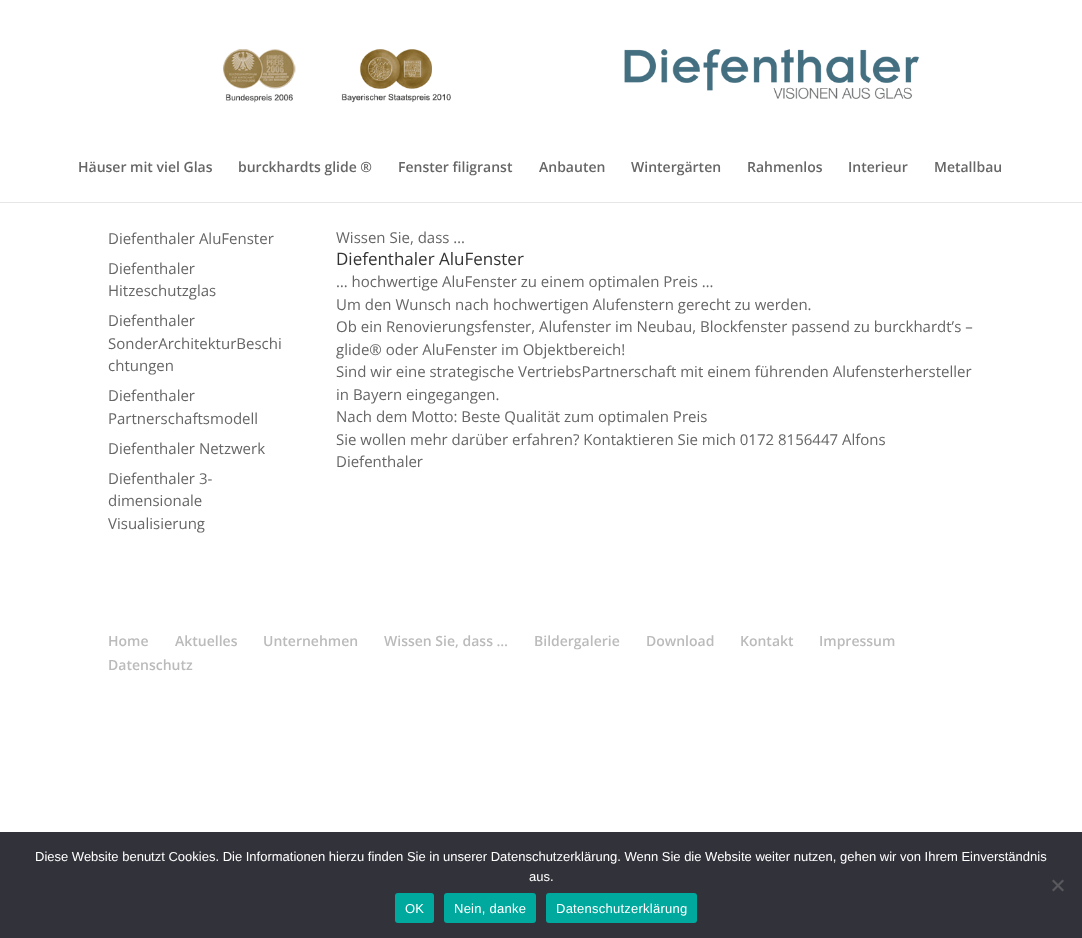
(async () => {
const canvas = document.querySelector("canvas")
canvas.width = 1082
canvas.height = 938
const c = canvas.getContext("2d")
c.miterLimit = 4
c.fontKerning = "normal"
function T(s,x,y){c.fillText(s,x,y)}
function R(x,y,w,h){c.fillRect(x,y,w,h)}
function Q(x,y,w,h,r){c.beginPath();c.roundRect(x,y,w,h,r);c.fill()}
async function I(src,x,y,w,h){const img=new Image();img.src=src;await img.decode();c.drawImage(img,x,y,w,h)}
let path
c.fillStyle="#fff"
R(0,0,1082,938)
c.fillStyle="#e6e6e6"
R(0,202,1082,1)
await I("1.png",223,49,697,54)
c.font="600 14px Open Sans"
c.fillStyle="#666"
T("Häuser mit viel Glas",78,172)
T("burckhardts glide ®",238,172)
T("Fenster filigranst",398,172)
T("Anbauten",539,172)
T("Wintergärten",631,172)
T("Rahmenlos",747,172)
T("Interieur",848,172)
T("Metallbau",934,172)
c.font="15px Open Sans"
T("Diefenthaler AluFenster",108,244)
T("Diefenthaler",108,274)
T("Hitzeschutzglas",108,296)
T("Diefenthaler",108,326)
T("SonderArchitekturBeschi",108,349)
T("chtungen",108,371)
T("Diefenthaler",108,401)
T("Partnerschaftsmodell",108,424)
T("Diefenthaler Netzwerk",108,454)
T("Diefenthaler 3-",108,484)
T("dimensionale",108,506)
T("Visualisierung",108,529)
T("Wissen Sie, dass …",336,243)
c.font="17px Open Sans"
c.fillStyle="#333"
T("Diefenthaler AluFenster",336,265)
c.font="15px Open Sans"
c.fillStyle="#666"
T("… hochwertige AluFenster zu einem optimalen Preis …",336,287)
T("Um den Wunsch nach hochwertigen Alufenstern gerecht zu werden.",336,310)
T("Ob ein Renovierungsfenster, Alufenster im Neubau, Blockfenster passend zu burckhardt’s –",336,332)
T("glide® oder AluFenster im Objektbereich!",336,355)
T("Sind wir eine strategische VertriebsPartnerschaft mit einem führenden Alufensterhersteller",336,377)
T("in Bayern eingegangen.",336,400)
T("Nach dem Motto: Beste Qualität zum optimalen Preis",336,422)
T("Sie wollen mehr darüber erfahren? Kontaktieren Sie mich 0172 8156447 Alfons",336,445)
T("Diefenthaler",336,467)
c.font="600 14px Open Sans"
c.fillStyle="#bbb"
T("Home",108,646)
T("Aktuelles",175,646)
T("Unternehmen",263,646)
T("Wissen Sie, dass …",384,646)
T("Bildergalerie",534,646)
T("Download",646,646)
T("Kontakt",740,646)
T("Impressum",819,646)
T("Datenschutz",108,670)
c.fillStyle="#32323a"
R(0,832,1082,106)
c.font="13px Liberation Sans"
c.fillStyle="#fff"
T("Diese Website benutzt Cookies. Die Informationen hierzu finden Sie in unserer Datenschutzerklärung. Wenn Sie die Website weiter nutzen, gehen wir von Ihrem Einverständnis",35,861)
T("aus.",529,881)
c.fillStyle="#59595d"
path = new Path2D("M1062.5 879.5l1.5 1.5l-10.5 10.5l-1.5-1.5z")
c.fill(path)
path = new Path2D("M1052 881l1.5-1.5l10.5 10.5l-1.5 1.5z")
c.fill(path)
c.fillStyle="#00a99d"
Q(395,893,39,30,3)
c.letterSpacing="0.25px"
c.fillStyle="#fff"
T("OK",405,913)
c.fillStyle="#00a99d"
Q(444,893,92,30,3)
c.fillStyle="#fff"
T("Nein, danke",454,913)
c.fillStyle="#00a99d"
Q(546,893,151,30,3)
c.fillStyle="#fff"
T("Datenschutzerklärung",556,913)
})()
